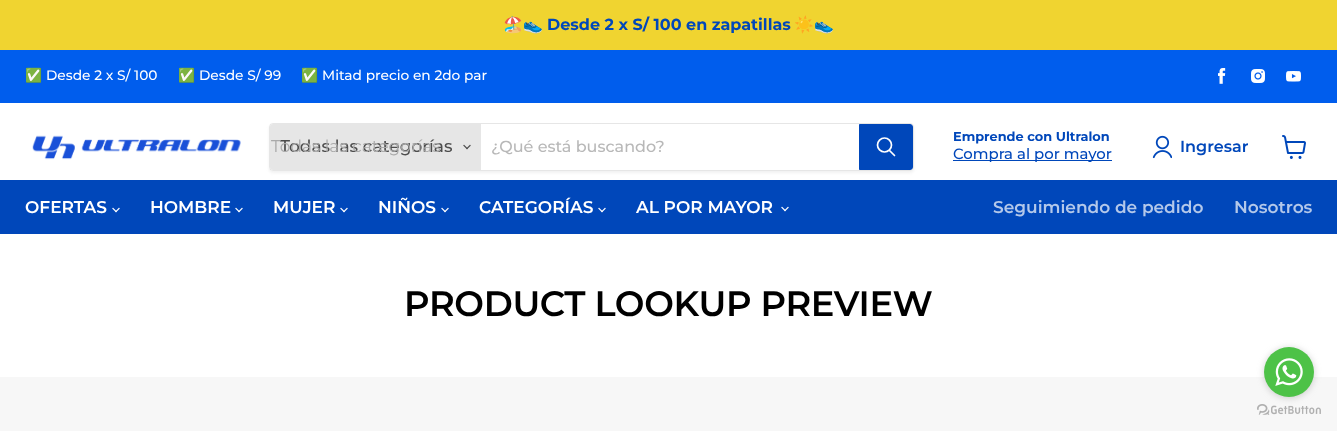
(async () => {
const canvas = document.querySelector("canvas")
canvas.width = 1337
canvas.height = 431
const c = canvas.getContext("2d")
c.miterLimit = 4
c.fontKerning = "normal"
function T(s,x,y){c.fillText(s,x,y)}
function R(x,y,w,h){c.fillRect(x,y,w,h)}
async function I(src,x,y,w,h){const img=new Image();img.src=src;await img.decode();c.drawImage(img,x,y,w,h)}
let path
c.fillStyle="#fff"
R(0,0,1337,431)
c.fillStyle="#f0d430"
R(0,0,1337,50)
c.font="bold 16px Noto Color Emoji"
c.fillStyle="#0047ba"
T("🏖️👟",503,30)
c.font="bold 16px Montserrat"
T("Desde 2 x S/ 100 en zapatillas",547,30)
c.font="bold 16px Noto Color Emoji"
T("☀️👟",794,30)
c.fillStyle="#005ded"
R(0,50,1337,53)
c.font="13.75px Noto Color Emoji"
c.fillStyle="#fff"
T("✅",25,80)
c.font="500 13.75px Montserrat"
T("Desde 2 x S/ 100",46,80)
c.font="13.75px Noto Color Emoji"
T("✅",178,80)
c.font="500 13.75px Montserrat"
T("Desde S/ 99",199,80)
c.font="13.75px Noto Color Emoji"
T("✅",301,80)
c.font="500 13.75px Montserrat"
T("Mitad precio en 2do par",322,80)
await I("1.png",1218,68,8,16)
await I("2.png",1251,69,14,14)
await I("3.png",1286,71,15,11)
c.fillStyle="#0047ba"
R(0,180,1337,54)
await I("4.png",32,135,209,25)
c.save()
path = new Path2D("M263 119h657v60h-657zm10 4h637c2 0 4 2 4 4v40c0 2-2 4-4 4h-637c-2 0-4-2-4-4v-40c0-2 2-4 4-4z")
c.clip(path,"evenodd")
c.fillStyle="#8080801c"
c.filter="blur(1.5px)"
c.beginPath()
c.roundRect(269,125,645,48,4)
c.fill()
c.filter="none"
c.restore()
c.beginPath()
c.roundRect(269.5,123.5,644,47,3.5)
c.strokeStyle="#80808033"
c.stroke()
c.fillStyle="#e6e6e6"
c.beginPath()
c.roundRect(270,124,211,46,[3,0,0,3])
c.fill()
c.font="500 17px Montserrat"
c.fillStyle="#4d4d4d"
T("Todas las categorías",280,152)
c.font="100 17px Montserrat"
c.fillStyle="#aaa"
T("Todas las categorías",271,152)
await I("5.png",463,144,8,6)
c.font="500 16px Montserrat"
c.fillStyle="#b8b8b8"
T("¿Qué está buscando?",491,152)
c.fillStyle="#0047ba"
c.beginPath()
c.roundRect(859.5,124.5,53,45,[0,2.5,2.5,0])
c.fill()
c.strokeStyle="#0047ba"
c.stroke()
path = new Path2D("M894.5 155.5l-5-5")
c.strokeStyle="#fff"
c.lineWidth=1.7
c.lineCap="round"
c.stroke(path)
c.beginPath()
c.arc(884.5,145,7,0,7)
c.stroke()
c.font="bold 12.9px Montserrat"
T("Emprende con Ultralon",953,141)
R(953,160,159,1)
c.font="500 14.9px Montserrat"
T("Compra al por mayor",953,159)
await I("6.png",1152,135,20,24)
c.font="600 16px Montserrat"
T("Ingresar",1180,152)
await I("7.png",1282,135,24,24)
c.font="600 17px Montserrat"
c.fillStyle="#fff"
T("OFERTAS",25,213)
await I("8.png",112,207,8,6)
T("HOMBRE",150,213)
await I("8.png",235,207,8,6)
T("MUJER",273,213)
await I("8.png",340,207,8,6)
T("NIÑOS",378,213)
await I("8.png",441,207,8,6)
T("CATEGORÍAS",479,213)
await I("8.png",598,207,8,6)
T("AL POR MAYOR",636,213)
await I("8.png",781,206,8,6)
c.fillStyle="#b3c8ea"
T("Seguimiendo de pedido",993,213)
T("Nosotros",1234,213)
c.letterSpacing="-0.35px"
c.font="600 35.25px Montserrat"
c.fillStyle="#000"
T("PRODUCT LOOKUP PREVIEW",404,316)
c.fillStyle="#f7f7f7"
R(0,377,1337,54)
await I("10.png",1257,404,64,11)
c.fillStyle="#88888866"
c.filter="blur(3.5px)"
c.beginPath()
c.roundRect(1264,348,50,50,25)
c.fill()
c.filter="none"
c.fillStyle="#4dc247"
c.beginPath()
c.arc(1289,372,25,0,7)
c.fill()
await I("9.png",1275,358,28,28)
})()
